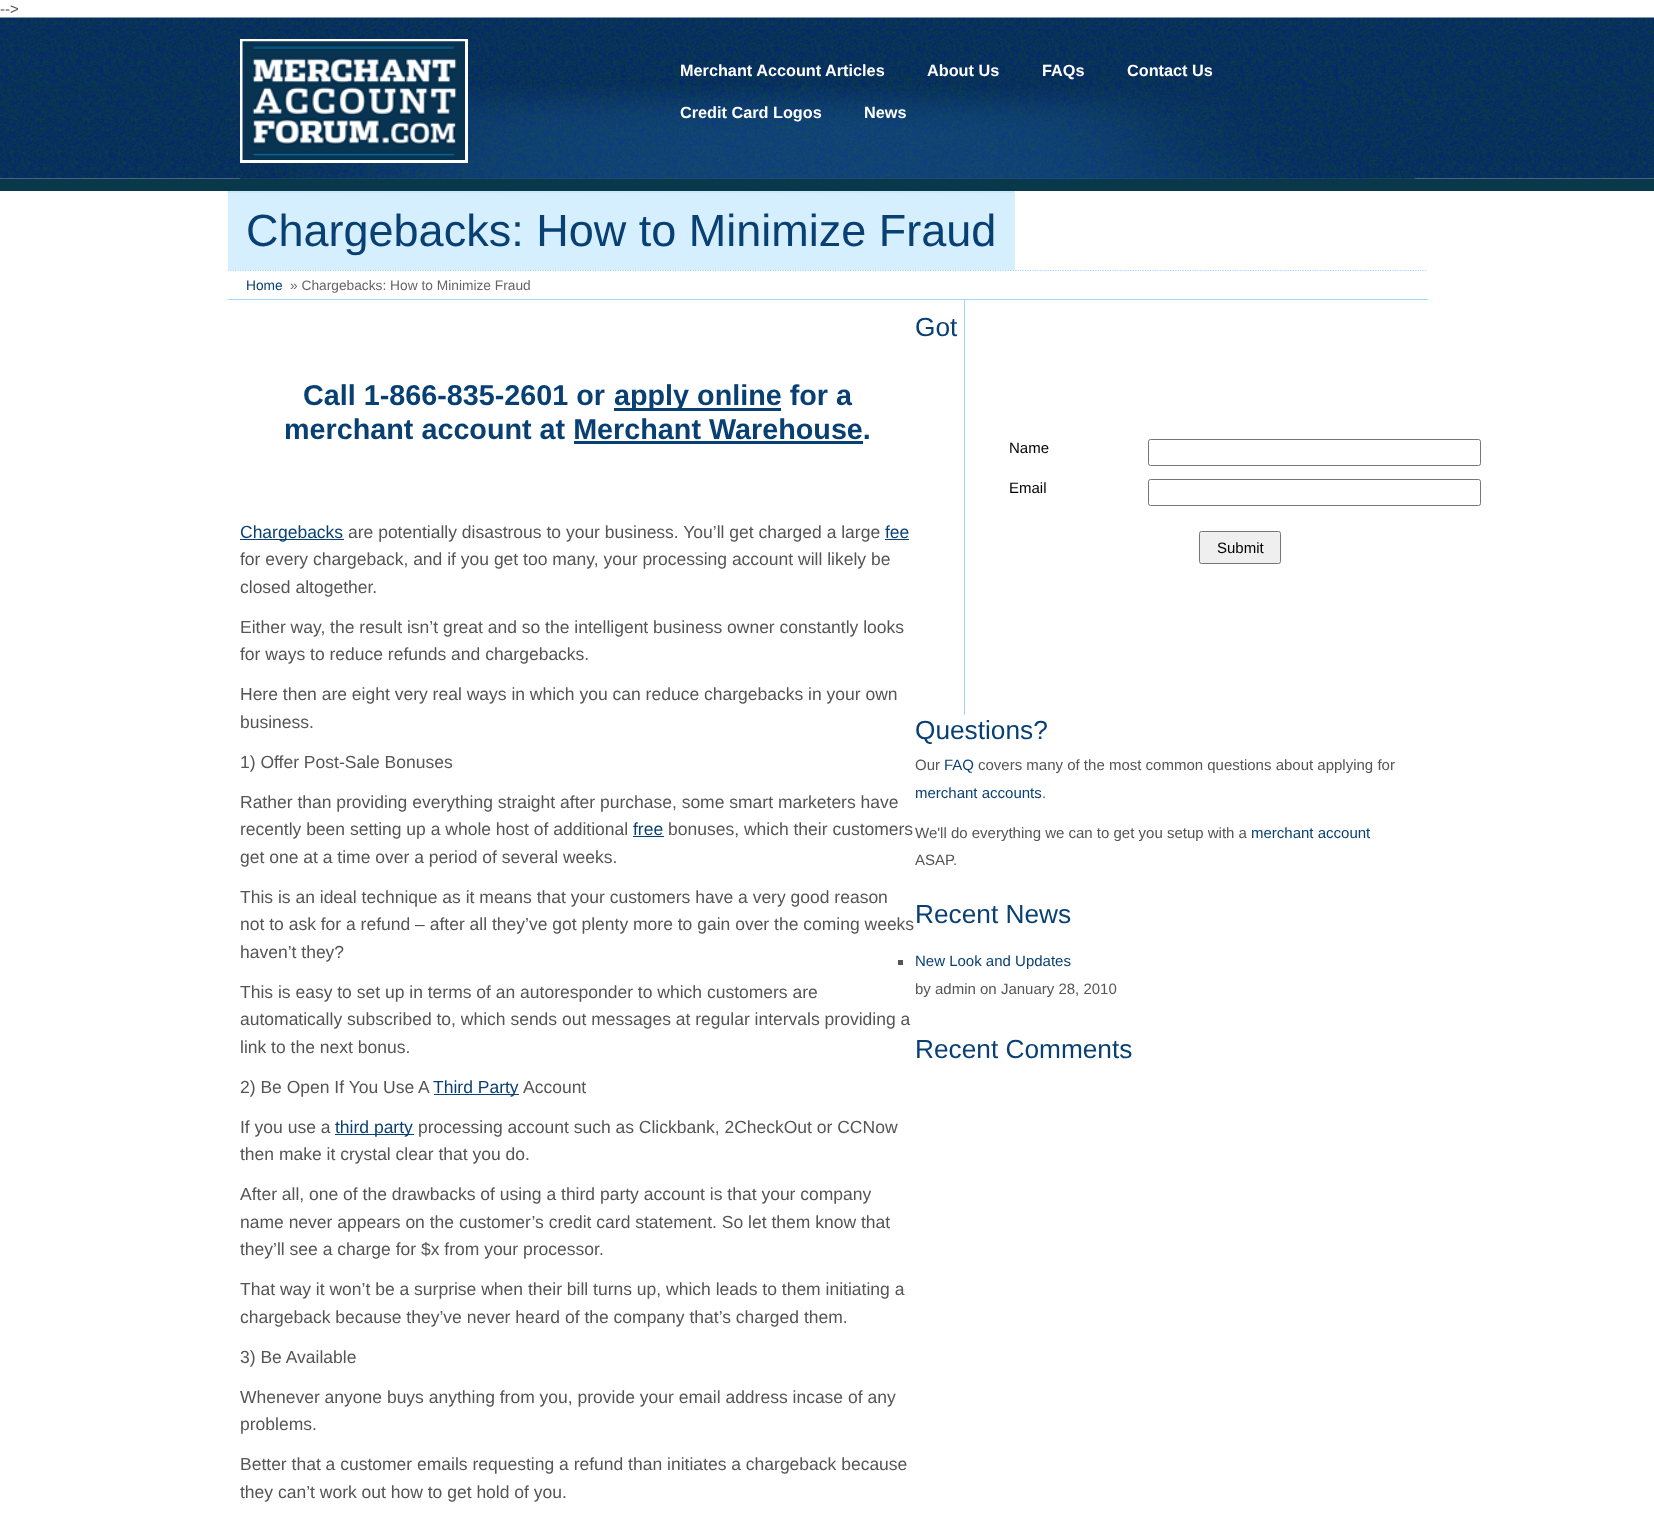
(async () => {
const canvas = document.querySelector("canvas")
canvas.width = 1654
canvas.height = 1521
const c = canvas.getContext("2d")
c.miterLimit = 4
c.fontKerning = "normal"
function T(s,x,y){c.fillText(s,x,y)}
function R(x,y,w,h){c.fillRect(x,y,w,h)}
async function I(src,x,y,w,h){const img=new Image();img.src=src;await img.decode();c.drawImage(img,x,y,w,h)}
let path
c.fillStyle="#fff"
R(0,0,1654,1521)
c.font="15px Liberation Sans"
c.fillStyle="#555"
T("-->",0,14)
await I("1.png",0,17,1654,162)
await I("2.png",240,72,1175,107)
c.strokeStyle="#fff"
c.lineWidth=3
c.strokeRect(241.5,40.5,225,121)
await I("3.png",242,41,223,119)
c.font="bold 16.25px Liberation Sans"
c.fillStyle="#fff"
T("Merchant Account Articles",680,76)
T("About Us",927,76)
T("FAQs",1042,76)
T("Contact Us",1127,76)
T("Credit Card Logos",680,118)
T("News",864,118)
c.fillStyle="#08384a"
R(0,179,1654,12)
c.fillStyle="#a0d5fe"
R(228,299,1200,1)
path = new Path2D("M227.5 270.5h1200")
c.strokeStyle="#a0d5fe"
c.lineWidth=1.2
c.setLineDash([1.25,1.25])
c.stroke(path)
c.fillStyle="#d6efff"
R(228,191,787,79)
path = new Path2D("M227.5 192h787.5")
c.stroke(path)
c.font="45px Liberation Sans"
c.fillStyle="#094073"
T("Chargebacks: How to Minimize Fraud",246,246)
c.font="13.75px Liberation Sans"
T("Home",246,290)
c.fillStyle="#666"
T("» Chargebacks: How to Minimize Fraud",290,290)
c.font="bold 28.75px Liberation Sans"
c.fillStyle="#094073"
T("Call 1-866-835-2601 or",303,405)
R(614,408,167,3)
T("apply online for a",614,405)
T("merchant account at Merchant Warehouse.",284,439)
R(574,441,289,3)
R(240,539,104,1)
c.font="17.5px Liberation Sans"
T("Chargebacks",240,538)
c.fillStyle="#555"
T("are potentially disastrous to your business. You’ll get charged a large",348,538)
c.fillStyle="#094073"
T("fee",885,538)
R(885,539,24,1)
c.fillStyle="#555"
T("for every chargeback, and if you get too many, your processing account will likely be",240,565)
T("closed altogether.",240,593)
T("Either way, the result isn’t great and so the intelligent business owner constantly looks",240,633)
T("for ways to reduce refunds and chargebacks.",240,660)
T("Here then are eight very real ways in which you can reduce chargebacks in your own",240,700)
T("business.",240,728)
T("1) Offer Post-Sale Bonuses",240,768)
T("Rather than providing everything straight after purchase, some smart marketers have",240,808)
T("recently been setting up a whole host of additional",240,835)
c.fillStyle="#094073"
T("free",633,835)
R(633,836,31,1)
c.fillStyle="#555"
T("bonuses, which their customers",668,835)
T("get one at a time over a period of several weeks.",240,863)
T("This is an ideal technique as it means that your customers have a very good reason",240,903)
T("not to ask for a refund – after all they’ve got plenty more to gain over the coming weeks",240,930)
T("haven’t they?",240,958)
T("This is easy to set up in terms of an autoresponder to which customers are",240,998)
T("automatically subscribed to, which sends out messages at regular intervals providing a",240,1025)
T("link to the next bonus.",240,1053)
T("2) Be Open If You Use A",240,1093)
c.fillStyle="#094073"
R(434,1094,85,1)
T("Third Party",433,1093)
c.fillStyle="#555"
T("Account",523,1093)
T("If you use a",240,1133)
c.fillStyle="#094073"
R(335,1134,79,1)
T("third party",335,1133)
c.fillStyle="#555"
T("processing account such as Clickbank, 2CheckOut or CCNow",418,1133)
T("then make it crystal clear that you do.",240,1160)
T("After all, one of the drawbacks of using a third party account is that your company",240,1200)
T("name never appears on the customer’s credit card statement. So let them know that",240,1228)
T("they’ll see a charge for $x from your processor.",240,1255)
T("That way it won’t be a surprise when their bill turns up, which leads to them initiating a",240,1295)
T("chargeback because they’ve never heard of the company that’s charged them.",240,1323)
T("3) Be Available",240,1363)
T("Whenever anyone buys anything from you, provide your email address incase of any",240,1403)
T("problems.",240,1430)
T("Better that a customer emails requesting a refund than initiates a chargeback because",240,1470)
T("they can’t work out how to get hold of you.",240,1498)
c.font="26.25px Liberation Sans"
c.fillStyle="#094073"
T("Got",915,336)
T("Questions?",915,739)
c.fillStyle="#a0d5fe"
R(964,300,1,415)
c.font="15px Liberation Sans"
c.fillStyle="#000"
T("Name",1009,453)
c.beginPath()
c.roundRect(1148.5,439.5,332,26,2)
c.strokeStyle="#767676"
c.lineWidth=1
c.setLineDash([])
c.stroke()
T("Email",1009,493)
c.beginPath()
c.roundRect(1148.5,479.5,332,26,2)
c.stroke()
c.fillStyle="#efefef"
c.beginPath()
c.roundRect(1199.5,531.5,81,32,2)
c.fill()
c.stroke()
c.fillStyle="#000"
T("Submit",1217,553)
c.fillStyle="#555"
T("Our",915,770)
c.fillStyle="#094073"
T("FAQ",944,770)
c.fillStyle="#555"
T("covers many of the most common questions about applying for",978,770)
c.fillStyle="#094073"
T("merchant accounts",915,798)
c.fillStyle="#555"
T(".",1042,798)
T("We'll do everything we can to get you setup with a",915,838)
c.fillStyle="#094073"
T("merchant account",1251,838)
c.fillStyle="#555"
T("ASAP.",915,865)
c.font="26.25px Liberation Sans"
c.fillStyle="#094073"
T("Recent News",915,923)
c.fillStyle="#555"
R(898,960,5,5)
c.font="15px Liberation Sans"
c.fillStyle="#094073"
T("New Look and Updates",915,966)
c.fillStyle="#555"
T("by admin on January 28, 2010",915,994)
c.font="26.25px Liberation Sans"
c.fillStyle="#094073"
T("Recent Comments",915,1058)
})()
